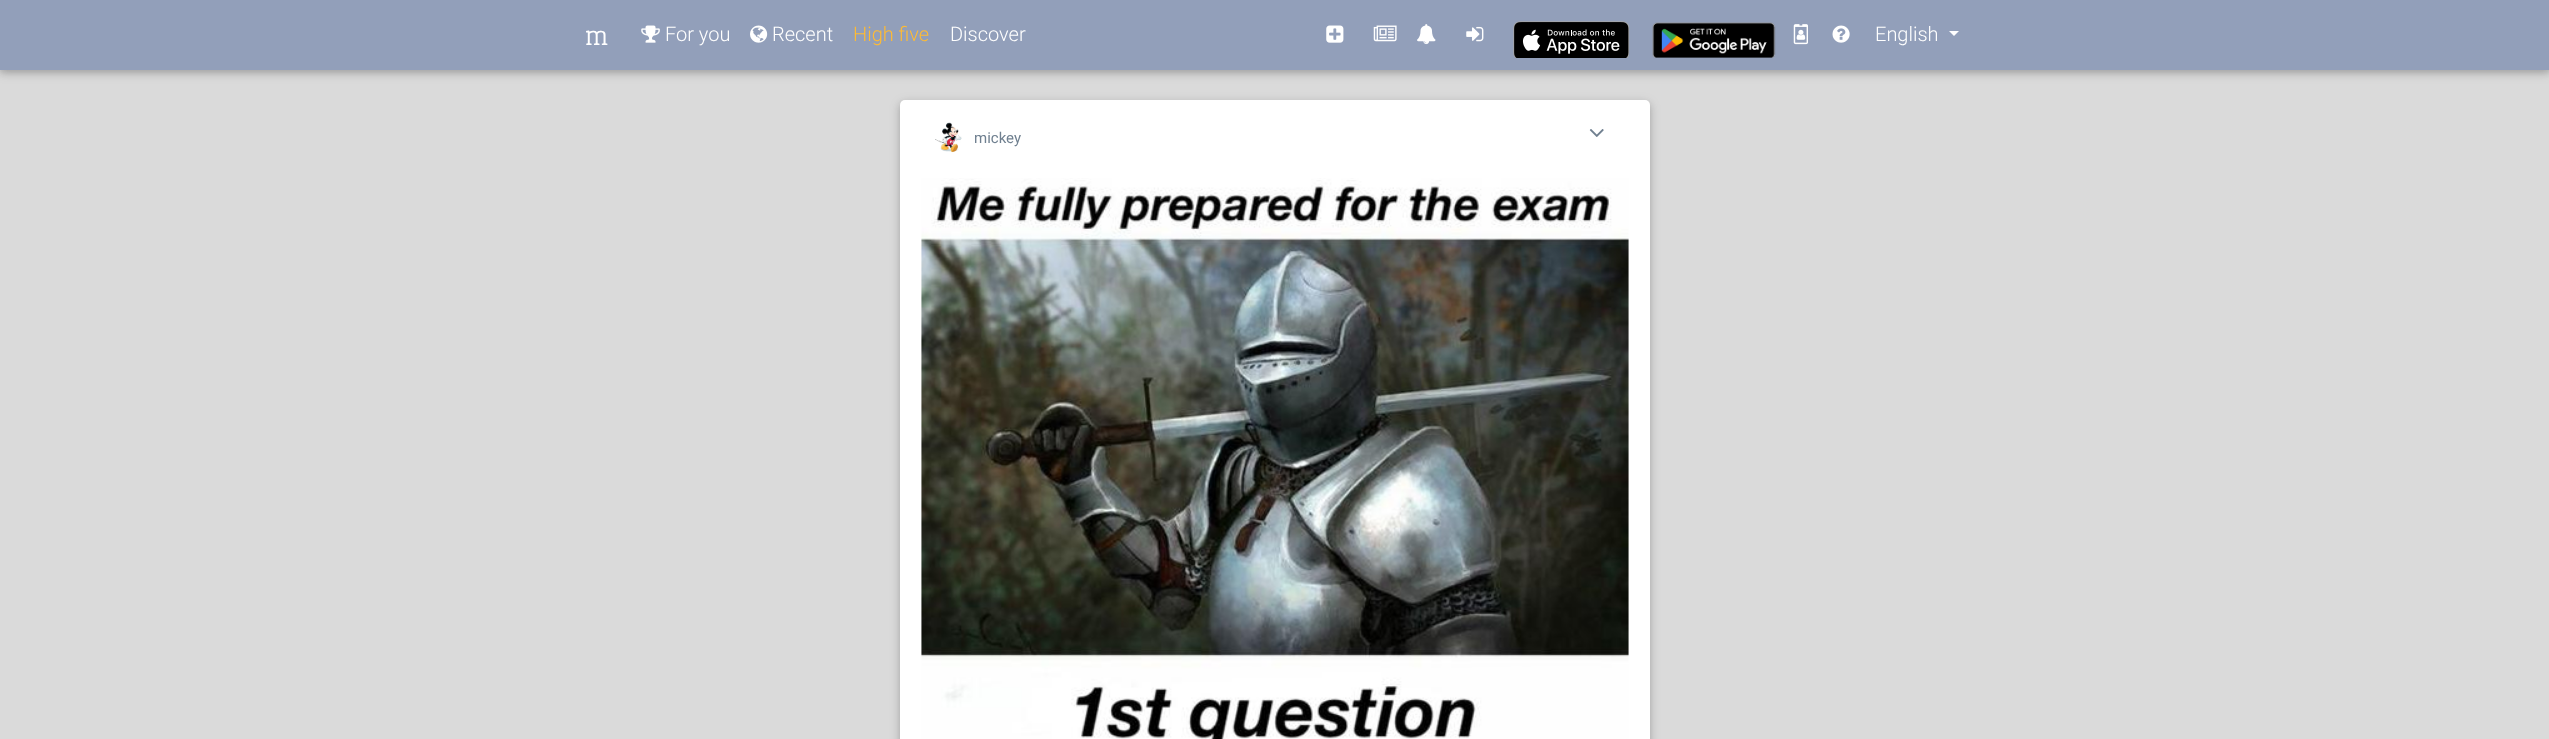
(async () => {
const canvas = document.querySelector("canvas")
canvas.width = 2549
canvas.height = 739
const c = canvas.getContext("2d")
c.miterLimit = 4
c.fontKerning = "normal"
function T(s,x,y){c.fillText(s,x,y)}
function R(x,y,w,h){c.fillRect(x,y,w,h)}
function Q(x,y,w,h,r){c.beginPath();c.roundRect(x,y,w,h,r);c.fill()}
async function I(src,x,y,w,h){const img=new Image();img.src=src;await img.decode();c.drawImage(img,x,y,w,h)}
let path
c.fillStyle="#dadada"
R(0,0,2549,739)
c.fillStyle="#0000001f"
c.filter="blur(6px)"
c.beginPath()
c.rect(0,3,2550,70)
c.fill()
c.filter="none"
c.fillStyle="#00000029"
c.filter="blur(3px)"
c.beginPath()
c.rect(0,3,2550,70)
c.fill()
c.filter="none"
c.fillStyle="#929fba"
R(0,0,2549,70)
c.font="300 30px Kreon"
c.fillStyle="#fff"
T("m",585,45)
await I("1.png",641,25,19,18)
c.font="300 20px Roboto"
T("For you",665,41)
await I("2.png",750,25,18,18)
T("Recent",772,41)
c.fillStyle="#fb3"
T("High five",853,41)
c.fillStyle="#fff"
T("Discover",950,41)
await I("3.png",1326,25,18,18)
await I("4.png",1373,25,24,17)
await I("5.png",1417,24,19,21)
await I("6.png",1466,26,18,16)
await I("7.png",1513,21,117,37)
await I("8.png",1652,22,124,36)
await I("9.png",1793,24,15,21)
await I("10.png",1832,25,18,18)
T("English",1875,41)
path = new Path2D("M1949 31h10l-5 5z")
c.fill(path)
c.fillStyle="#0000001f"
c.filter="blur(6px)"
c.beginPath()
c.roundRect(900,103,750,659,5)
c.fill()
c.filter="none"
c.fillStyle="#00000029"
c.filter="blur(3px)"
c.beginPath()
c.roundRect(900,103,750,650,5)
c.fill()
c.filter="none"
c.fillStyle="#fff"
Q(900,100,750,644,5)
await I("11.png",935,122,27,31)
c.font="15px Roboto"
c.fillStyle="#708090"
T("mickey",974,143)
await I("12.png",1589,129,15,8)
await I("13.png",921,178,708,561)
})()
